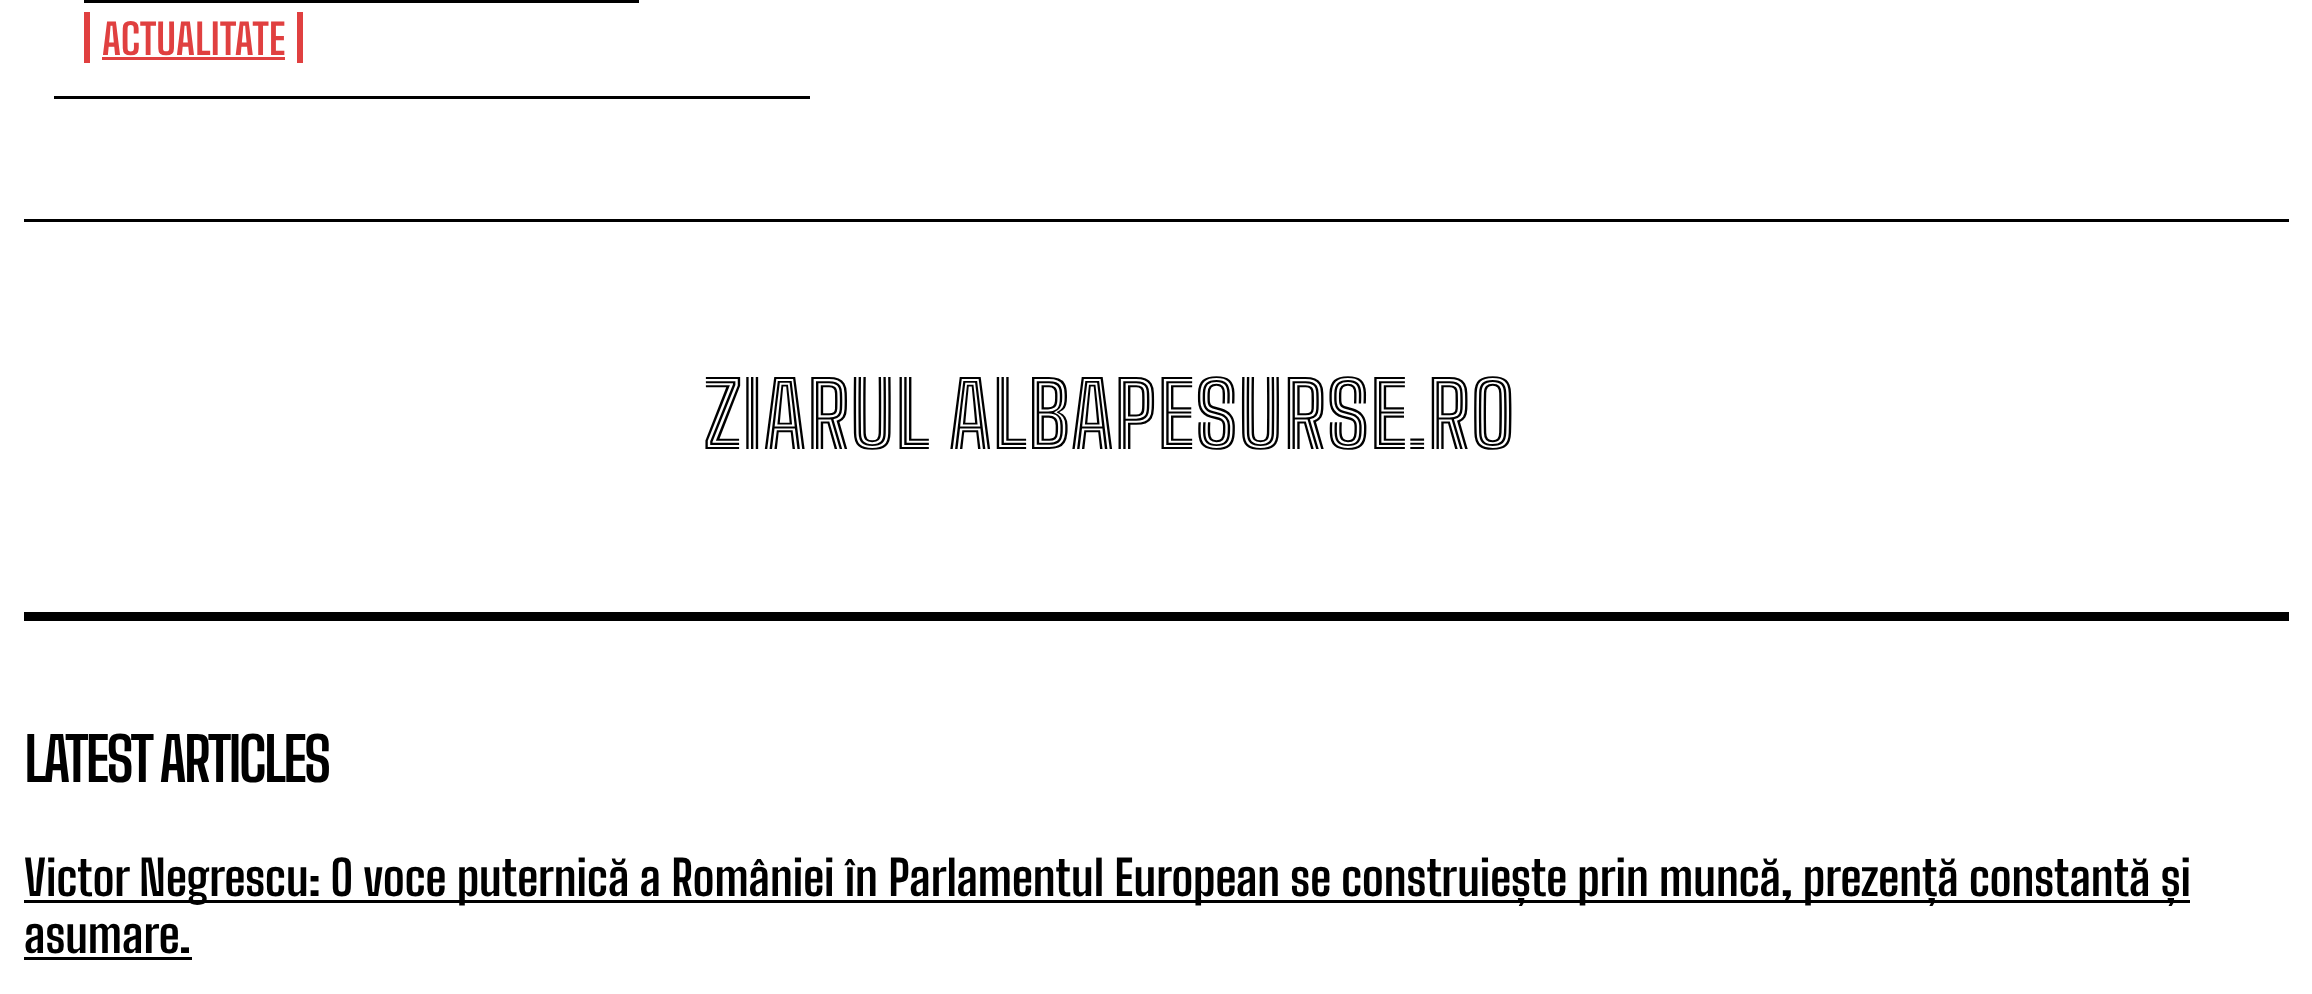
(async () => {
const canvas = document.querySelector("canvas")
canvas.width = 2312
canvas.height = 994
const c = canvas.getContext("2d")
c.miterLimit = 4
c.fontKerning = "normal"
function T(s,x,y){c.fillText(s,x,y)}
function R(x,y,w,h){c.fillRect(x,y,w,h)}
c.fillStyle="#fff"
R(0,0,2312,994)
c.fillStyle="#000"
R(54,96,756,3)
R(84,0,555,3)
c.font="bold 42px Big Shoulders Text"
c.fillStyle="#e04040"
T("ACTUALITATE",102,55)
R(297,12,6,51)
R(84,12,6,51)
R(102,57,183,3)
c.fillStyle="#000"
R(24,219,2265,3)
R(24,612,2265,9)
c.font="800 90px Big Shoulders Inline Text"
T("ZIARUL ALBAPESURSE.RO",704,449)
c.letterSpacing="-3px"
c.font="bold 60px Big Shoulders Text"
T("LATEST ARTICLES",24,782)
R(24,900,2166,3)
c.letterSpacing="0px"
c.font="bold 48px Big Shoulders Text"
T("Victor Negrescu: O voce puternică a României în Parlamentul European se construiește prin muncă, prezență constantă și",24,896)
T("asumare.",24,953)
R(24,957,168,3)
})()
